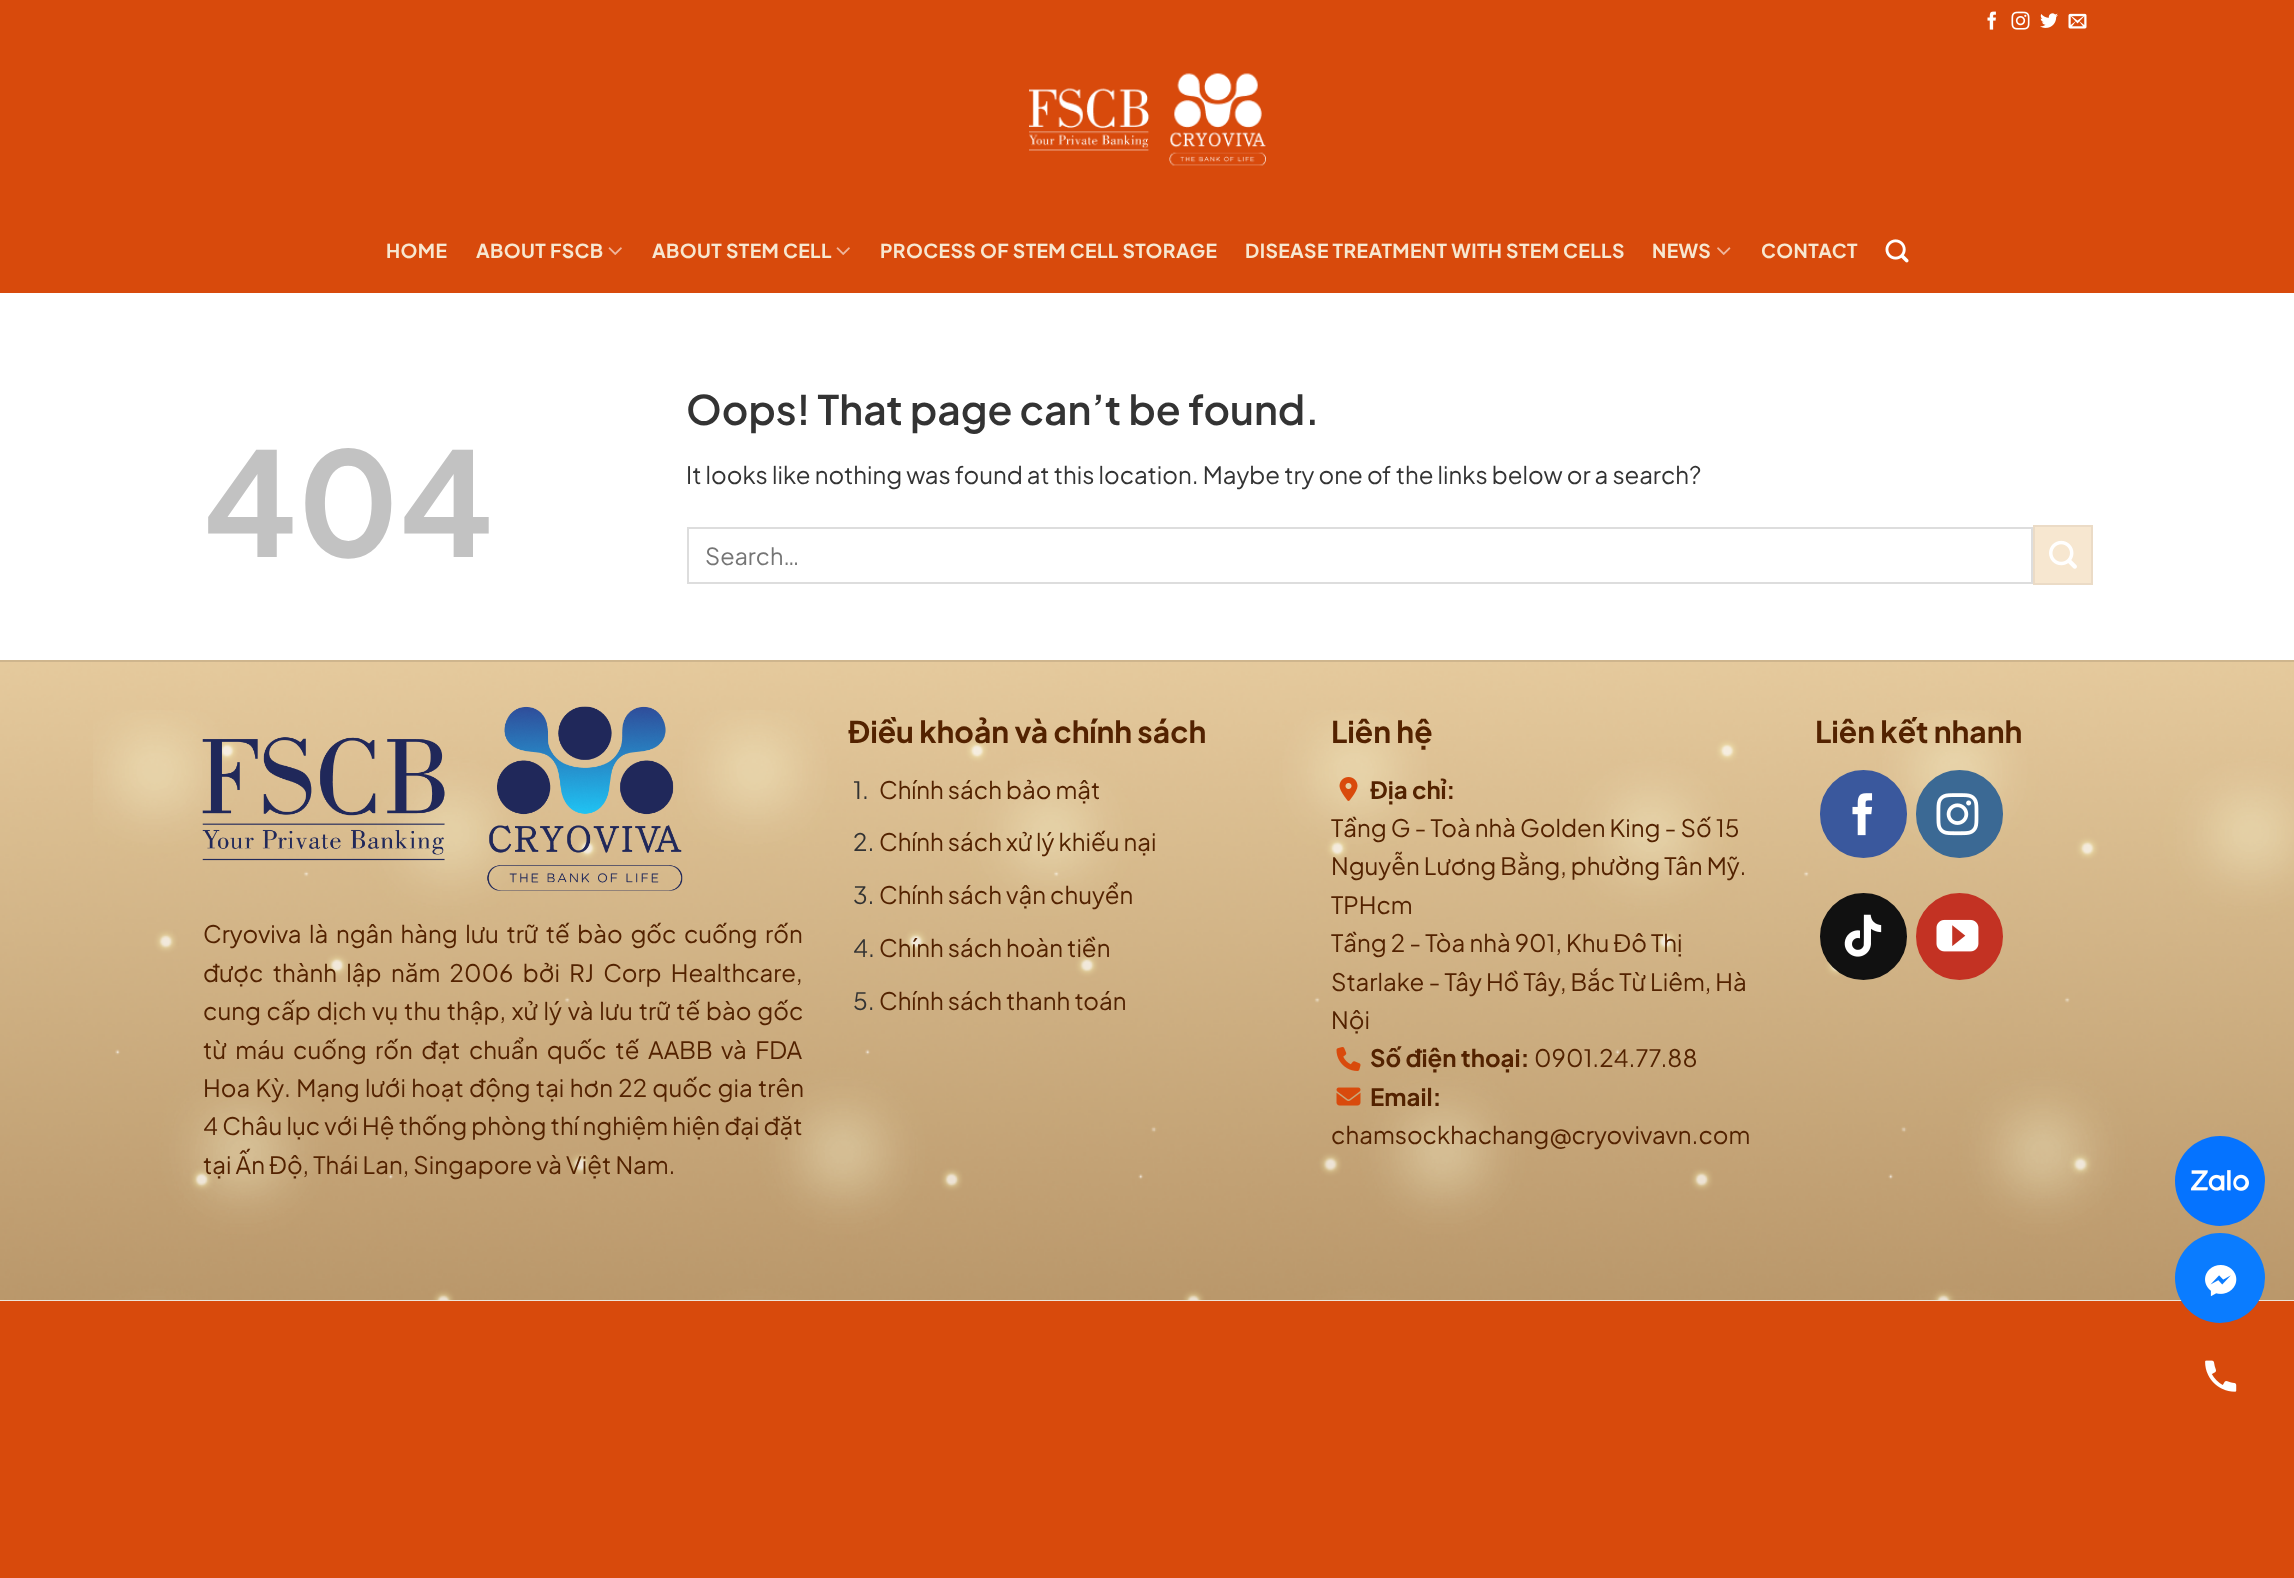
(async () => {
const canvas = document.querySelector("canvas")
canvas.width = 2294
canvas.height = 1578
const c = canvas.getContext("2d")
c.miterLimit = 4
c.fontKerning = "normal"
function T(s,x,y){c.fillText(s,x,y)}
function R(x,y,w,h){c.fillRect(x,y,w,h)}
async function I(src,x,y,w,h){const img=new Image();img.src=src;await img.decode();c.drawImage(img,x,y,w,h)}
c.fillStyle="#d84a0c"
R(0,0,2294,1578)
c.fillStyle="#fff"
R(0,293,2294,1008)
await I("1.png",1987,11,9,19)
await I("2.png",2011,11,19,19)
await I("3.png",2040,13,18,15)
await I("4.png",2068,13,19,16)
await I("5.png",1029,73,237,93)
c.letterSpacing="0.4px"
c.font="bold 19.25px Plus Jakarta Sans"
c.fillStyle="#f7e7d0"
T("HOME",386,258)
T("ABOUT FSCB",476,258)
await I("6.png",608,247,14,8)
T("ABOUT STEM CELL",652,258)
await I("6.png",836,247,14,8)
T("PROCESS OF STEM CELL STORAGE",880,258)
T("DISEASE TREATMENT WITH STEM CELLS",1245,258)
T("NEWS",1652,258)
await I("7.png",1717,247,14,8)
T("CONTACT",1761,258)
await I("8.png",1885,239,24,24)
c.letterSpacing="0px"
c.font="bold 144px Plus Jakarta Sans"
c.fillStyle="#c2c2c2"
T("404",203,557)
c.font="600 40.75px Plus Jakarta Sans"
c.fillStyle="#333"
T("Oops! That page can’t be found.",686,425)
c.font="24px Plus Jakarta Sans"
T("It looks like nothing was found at this location. Maybe try one of the links below or a search?",686,484)
c.strokeStyle="#ddd"
c.lineWidth=2
c.strokeRect(688,528,1344,55)
c.font="23.5px Plus Jakarta Sans"
c.fillStyle="#757575"
T("Search…",705,565)
c.fillStyle="#f7e7d0"
c.beginPath()
c.rect(2034,526,58,58)
c.fill()
c.strokeStyle="#ebdbc6"
c.stroke()
await I("9.png",2049,540,28,29)
await I("10.png",0,662,2294,639)
await I("11.png",93,710,2201,591)
c.fillStyle="#ceb58d"
R(0,660,2294,2)
await I("12.png",202,706,481,185)
c.wordSpacing="3.5px"
c.font="24px Plus Jakarta Sans"
c.fillStyle="#532200"
T("Cryoviva là ngân hàng lưu trữ tế bào gốc cuống rốn",203,943)
c.wordSpacing="5.25px"
T("được thành lập năm 2006 bởi RJ Corp Healthcare,",203,982)
c.wordSpacing="1.75px"
T("cung cấp dịch vụ thu thập, xử lý và lưu trữ tế bào gốc",203,1020)
c.wordSpacing="4.5px"
T("từ máu cuống rốn đạt chuẩn quốc tế AABB và FDA",203,1059)
c.wordSpacing="1.25px"
T("Hoa Kỳ. Mạng lưới hoạt động tại hơn 22 quốc gia trên",203,1097)
c.wordSpacing="0.1px"
T("4 Châu lục với Hệ thống phòng thí nghiệm hiện đại đặt",203,1135)
c.wordSpacing="0px"
T("tại Ấn Độ, Thái Lan, Singapore và Việt Nam.",203,1174)
c.font="bold 30px Plus Jakarta Sans"
T("Điều khoản và chính sách",848,743)
c.font="24px Plus Jakarta Sans"
c.fillStyle="#333"
T("1.",853,799)
c.fillStyle="#532200"
T("Chính sách bảo mật",879,799)
c.fillStyle="#333"
T("2.",853,851)
c.fillStyle="#532200"
T("Chính sách xử lý khiếu nại",879,851)
c.fillStyle="#333"
T("3.",853,904)
c.fillStyle="#532200"
T("Chính sách vận chuyển",879,904)
c.fillStyle="#333"
T("4.",853,957)
c.fillStyle="#532200"
T("Chính sách hoàn tiền",879,957)
c.fillStyle="#333"
T("5.",853,1010)
c.fillStyle="#532200"
T("Chính sách thanh toán",879,1010)
c.font="bold 30px Plus Jakarta Sans"
T("Liên hệ",1331,743)
await I("13.png",1339,777,19,24)
c.font="bold 24px Plus Jakarta Sans"
T("Địa chỉ:",1370,799)
c.font="24px Plus Jakarta Sans"
T("Tầng G - Toà nhà Golden King - Số 15",1331,837)
T("Nguyễn Lương Bằng, phường Tân Mỹ.",1331,875)
T("TPHcm",1331,914)
T("Tầng 2 - Tòa nhà 901, Khu Đô Thị",1331,952)
T("Starlake - Tây Hồ Tây, Bắc Từ Liêm, Hà",1331,991)
T("Nội",1331,1029)
await I("14.png",1336,1047,25,24)
c.font="bold 24px Plus Jakarta Sans"
T("Số điện thoại:",1370,1067)
c.font="24px Plus Jakarta Sans"
T("0901.24.77.88",1534,1067)
await I("15.png",1336,1087,25,19)
c.font="bold 24px Plus Jakarta Sans"
T("Email:",1370,1106)
c.font="24px Plus Jakarta Sans"
T("chamsockhachang@cryovivavn.com",1331,1144)
c.font="bold 30px Plus Jakarta Sans"
T("Liên kết nhanh",1815,743)
c.fillStyle="#3a589d"
c.beginPath()
c.roundRect(1821,771,85,86,42.5)
c.fill()
c.strokeStyle="#3a589d"
c.stroke()
await I("16.png",1852,793,21,43)
c.fillStyle="#3b6994"
c.beginPath()
c.roundRect(1917,771,85,86,42.5)
c.fill()
c.strokeStyle="#3b6994"
c.stroke()
await I("17.png",1936,793,43,43)
c.fillStyle="#111"
c.beginPath()
c.arc(1863.5,936.5,42.5,0,7)
c.fill()
c.strokeStyle="#111"
c.stroke()
await I("18.png",1844,914,38,43)
c.fillStyle="#c33223"
c.beginPath()
c.arc(1959.5,936.5,42.5,0,7)
c.fill()
c.strokeStyle="#c33223"
c.stroke()
await I("19.png",1936,919,43,33)
c.fillStyle="#0573ff"
c.beginPath()
c.arc(2220,1181,45,0,7)
c.fill()
await I("20.png",2190,1170,59,21)
c.fillStyle="#0a7cff"
c.beginPath()
c.arc(2220,1278,45,0,7)
c.fill()
await I("21.png",2205,1265,32,32)
await I("22.png",2205,1360,32,32)
})()
